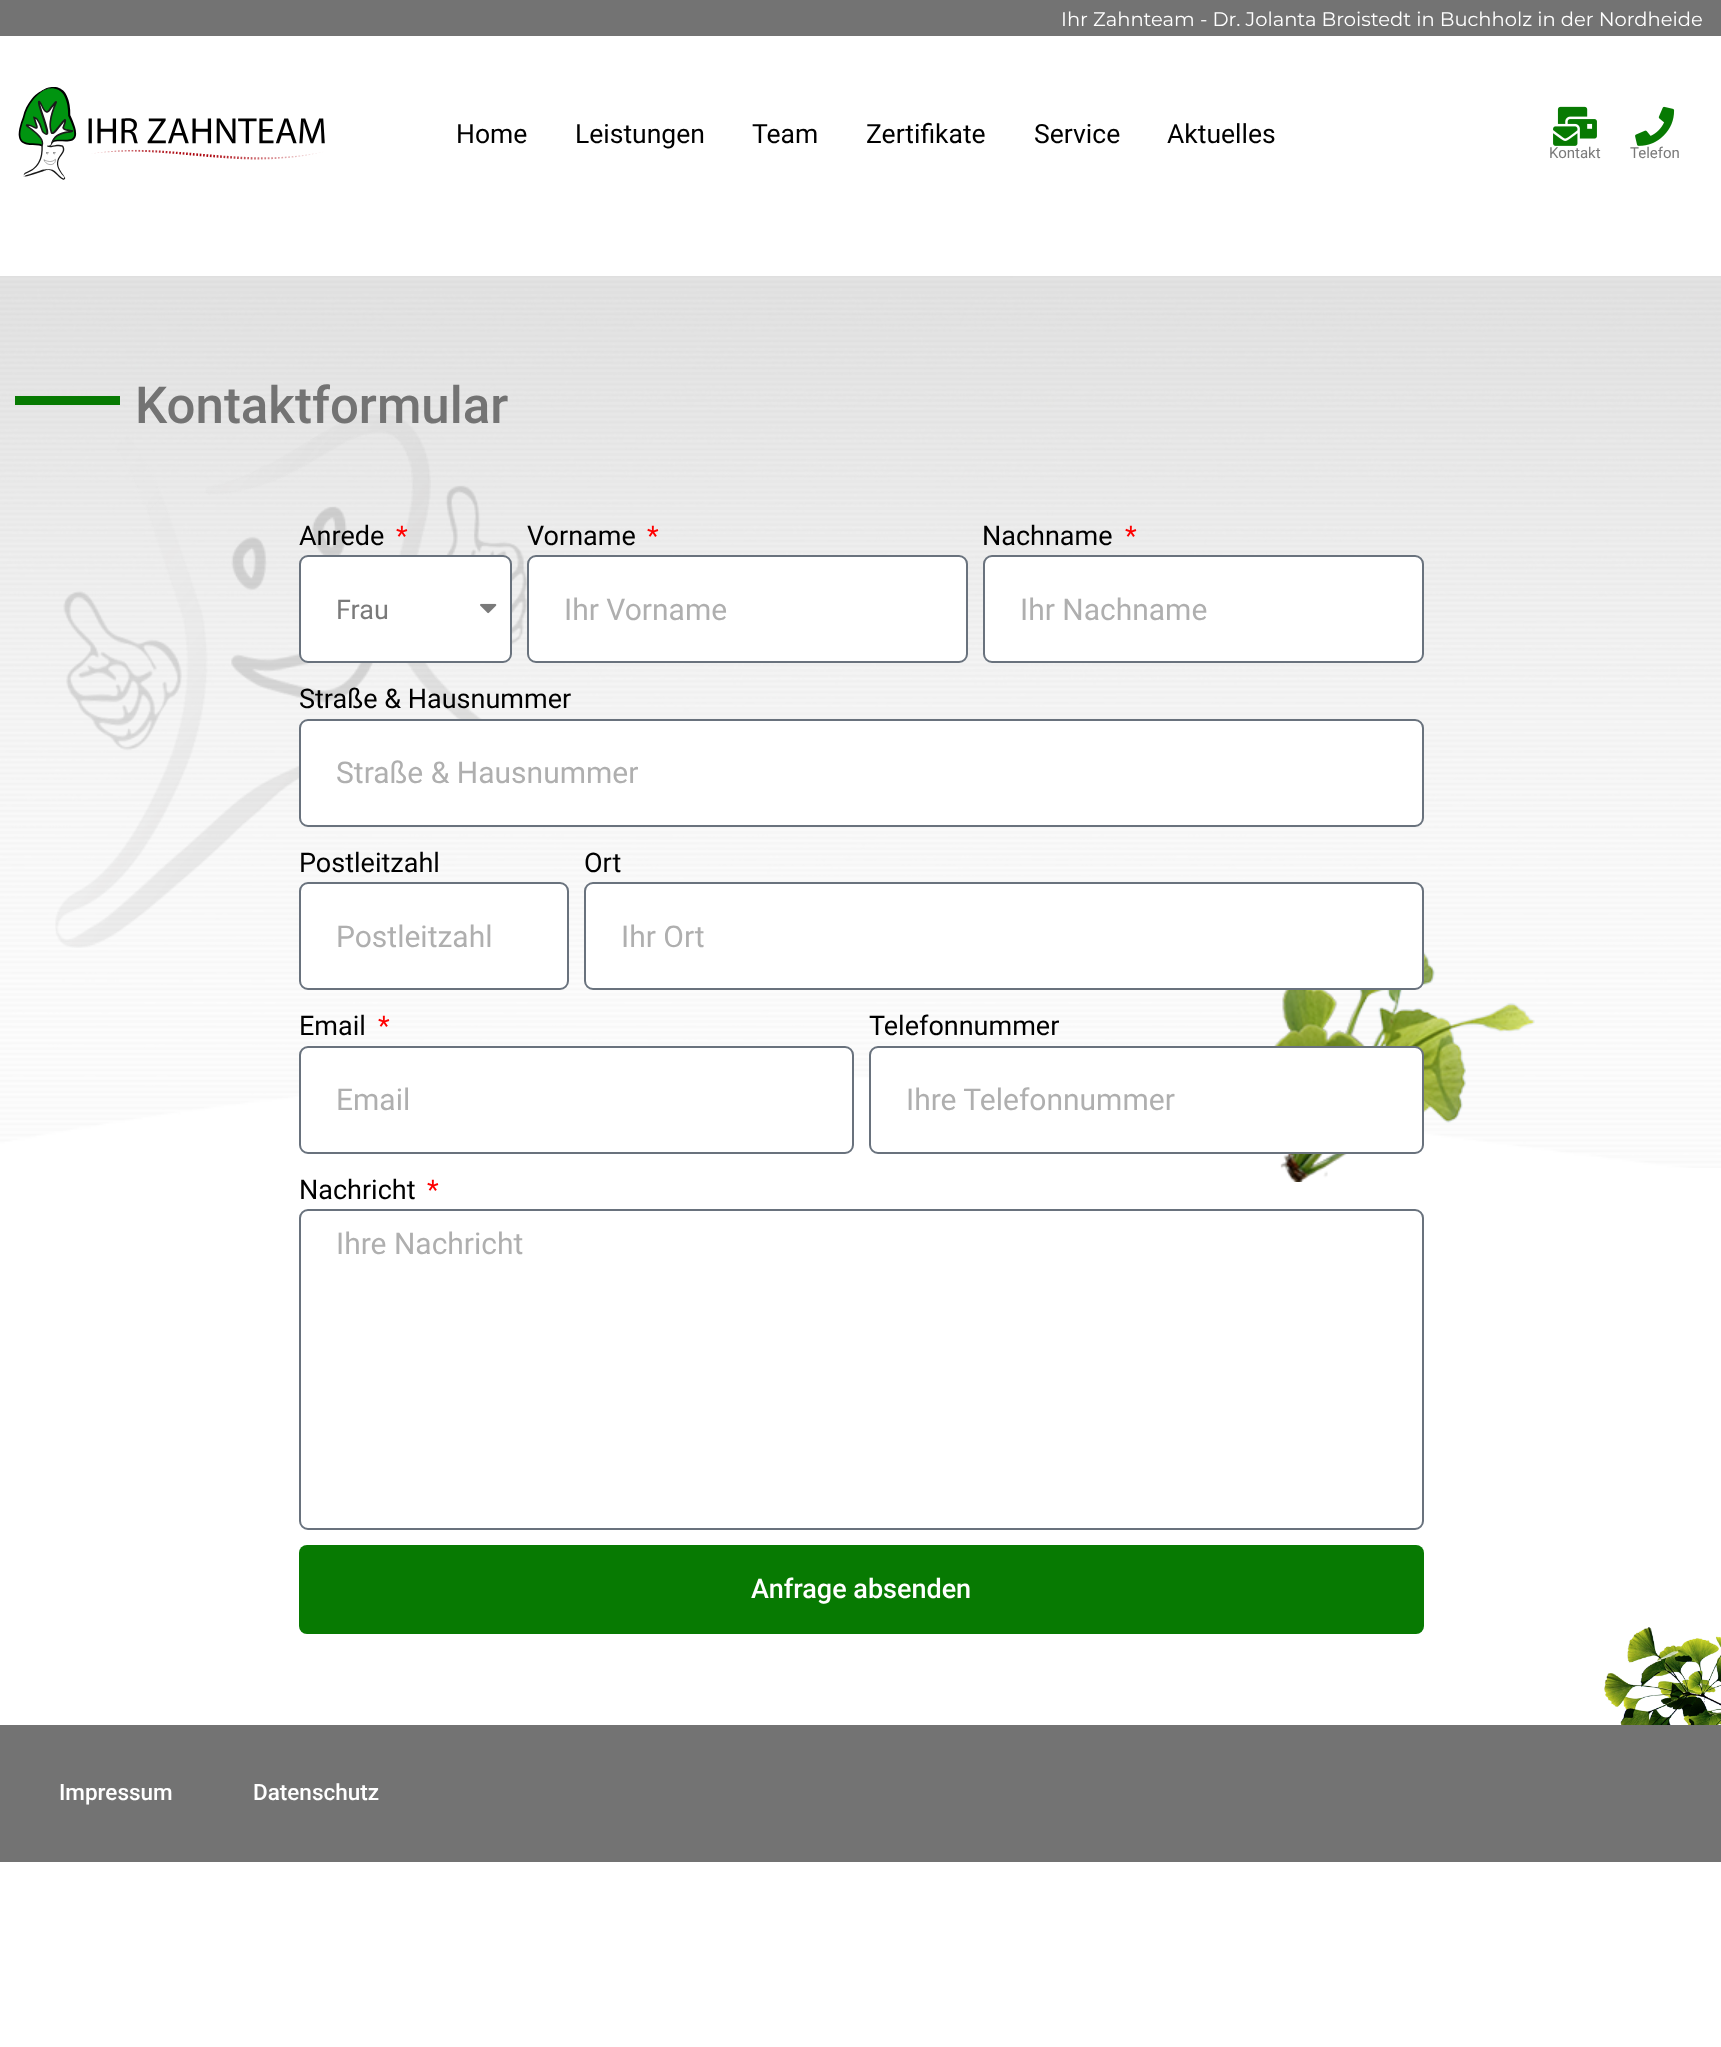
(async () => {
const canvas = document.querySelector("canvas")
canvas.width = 1721
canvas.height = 2047
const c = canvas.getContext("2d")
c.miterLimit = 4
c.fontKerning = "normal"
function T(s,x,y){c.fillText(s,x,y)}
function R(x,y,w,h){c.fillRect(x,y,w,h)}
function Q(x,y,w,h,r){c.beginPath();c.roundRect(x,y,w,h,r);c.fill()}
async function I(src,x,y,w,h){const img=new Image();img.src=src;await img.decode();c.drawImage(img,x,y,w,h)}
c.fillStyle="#fff"
R(0,0,1721,2047)
c.fillStyle="#737373"
R(0,0,1721,36)
c.font="19.5px Montserrat"
c.fillStyle="#fff"
T("Ihr Zahnteam - Dr. Jolanta Broistedt in Buchholz in der Nordheide",1061,26)
await I("1.png",18,87,307,93)
c.font="26.5px Roboto"
c.fillStyle="#000"
T("Home",456,143)
T("Leistungen",575,143)
T("Team",752,143)
T("Zertifikate",866,143)
T("Service",1034,143)
T("Aktuelles",1167,143)
await I("2.png",1553,106,44,40)
c.font="15px Roboto"
c.fillStyle="#7a7a7a"
T("Kontakt",1549,158)
await I("3.png",1635,106,40,40)
T("Telefon",1630,158)
await I("4.png",0,276,1721,892)
c.fillStyle="#077a02"
R(15,396,105,9)
await I("7.png",55,414,472,534)
c.font="500 51px Roboto"
c.fillStyle="#737373"
T("Kontaktformular",135,423)
await I("5.png",1274,952,261,230)
c.font="27px Roboto"
c.fillStyle="#000"
T("Anrede",299,545)
c.fillStyle="#f00"
T("*",396,545)
c.fillStyle="#fff"
c.beginPath()
c.roundRect(300,556,211,106,8)
c.fill()
c.strokeStyle="#69727d"
c.lineWidth=2
c.stroke()
c.fillStyle="#7a7a7a"
T("Frau",336,619)
await I("6.png",480,603,17,11)
c.fillStyle="#000"
T("Vorname",527,545)
c.fillStyle="#f00"
T("*",647,545)
c.fillStyle="#fff"
c.beginPath()
c.roundRect(528,556,439,106,8)
c.fill()
c.stroke()
c.font="30px Roboto"
c.fillStyle="#afafaf"
T("Ihr Vorname",564,620)
c.font="27px Roboto"
c.fillStyle="#000"
T("Nachname",982,545)
c.fillStyle="#f00"
T("*",1125,545)
c.fillStyle="#fff"
c.beginPath()
c.roundRect(984,556,439,106,8)
c.fill()
c.stroke()
c.font="30px Roboto"
c.fillStyle="#afafaf"
T("Ihr Nachname",1020,620)
c.font="27px Roboto"
c.fillStyle="#000"
T("Straße & Hausnummer",299,708)
c.fillStyle="#fff"
c.beginPath()
c.roundRect(300,720,1123,106,8)
c.fill()
c.stroke()
c.font="30px Roboto"
c.fillStyle="#afafaf"
T("Straße & Hausnummer",336,783)
c.font="27px Roboto"
c.fillStyle="#000"
T("Postleitzahl",299,872)
c.fillStyle="#fff"
c.beginPath()
c.roundRect(300,883,268,106,8)
c.fill()
c.stroke()
c.font="30px Roboto"
c.fillStyle="#afafaf"
T("Postleitzahl",336,947)
c.font="27px Roboto"
c.fillStyle="#000"
T("Ort",584,872)
c.fillStyle="#fff"
c.beginPath()
c.roundRect(585,883,838,106,8)
c.fill()
c.stroke()
c.font="30px Roboto"
c.fillStyle="#afafaf"
T("Ihr Ort",621,947)
c.font="27px Roboto"
c.fillStyle="#000"
T("Email",299,1035)
c.fillStyle="#f00"
T("*",378,1035)
c.fillStyle="#fff"
c.beginPath()
c.roundRect(300,1047,553,106,8)
c.fill()
c.stroke()
c.font="30px Roboto"
c.fillStyle="#afafaf"
T("Email",336,1110)
c.font="27px Roboto"
c.fillStyle="#000"
T("Telefonnummer",869,1035)
c.fillStyle="#fff"
c.beginPath()
c.roundRect(870,1047,553,106,8)
c.fill()
c.stroke()
c.font="30px Roboto"
c.fillStyle="#afafaf"
T("Ihre Telefonnummer",906,1110)
c.font="27px Roboto"
c.fillStyle="#000"
T("Nachricht",299,1199)
c.fillStyle="#f00"
T("*",427,1199)
c.beginPath()
c.roundRect(300,1210,1123,319,8)
c.stroke()
c.font="30px Roboto"
c.fillStyle="#afafaf"
T("Ihre Nachricht",336,1254)
c.fillStyle="#077a02"
Q(299,1545,1125,89,8)
c.font="500 27px Roboto"
c.fillStyle="#fff"
T("Anfrage absenden",751,1598)
await I("8.png",1604,1627,117,98)
c.fillStyle="#737373"
R(0,1725,1721,137)
c.font="500 22.5px Roboto"
c.fillStyle="#fff"
T("Impressum",59,1800)
T("Datenschutz",253,1800)
})()
